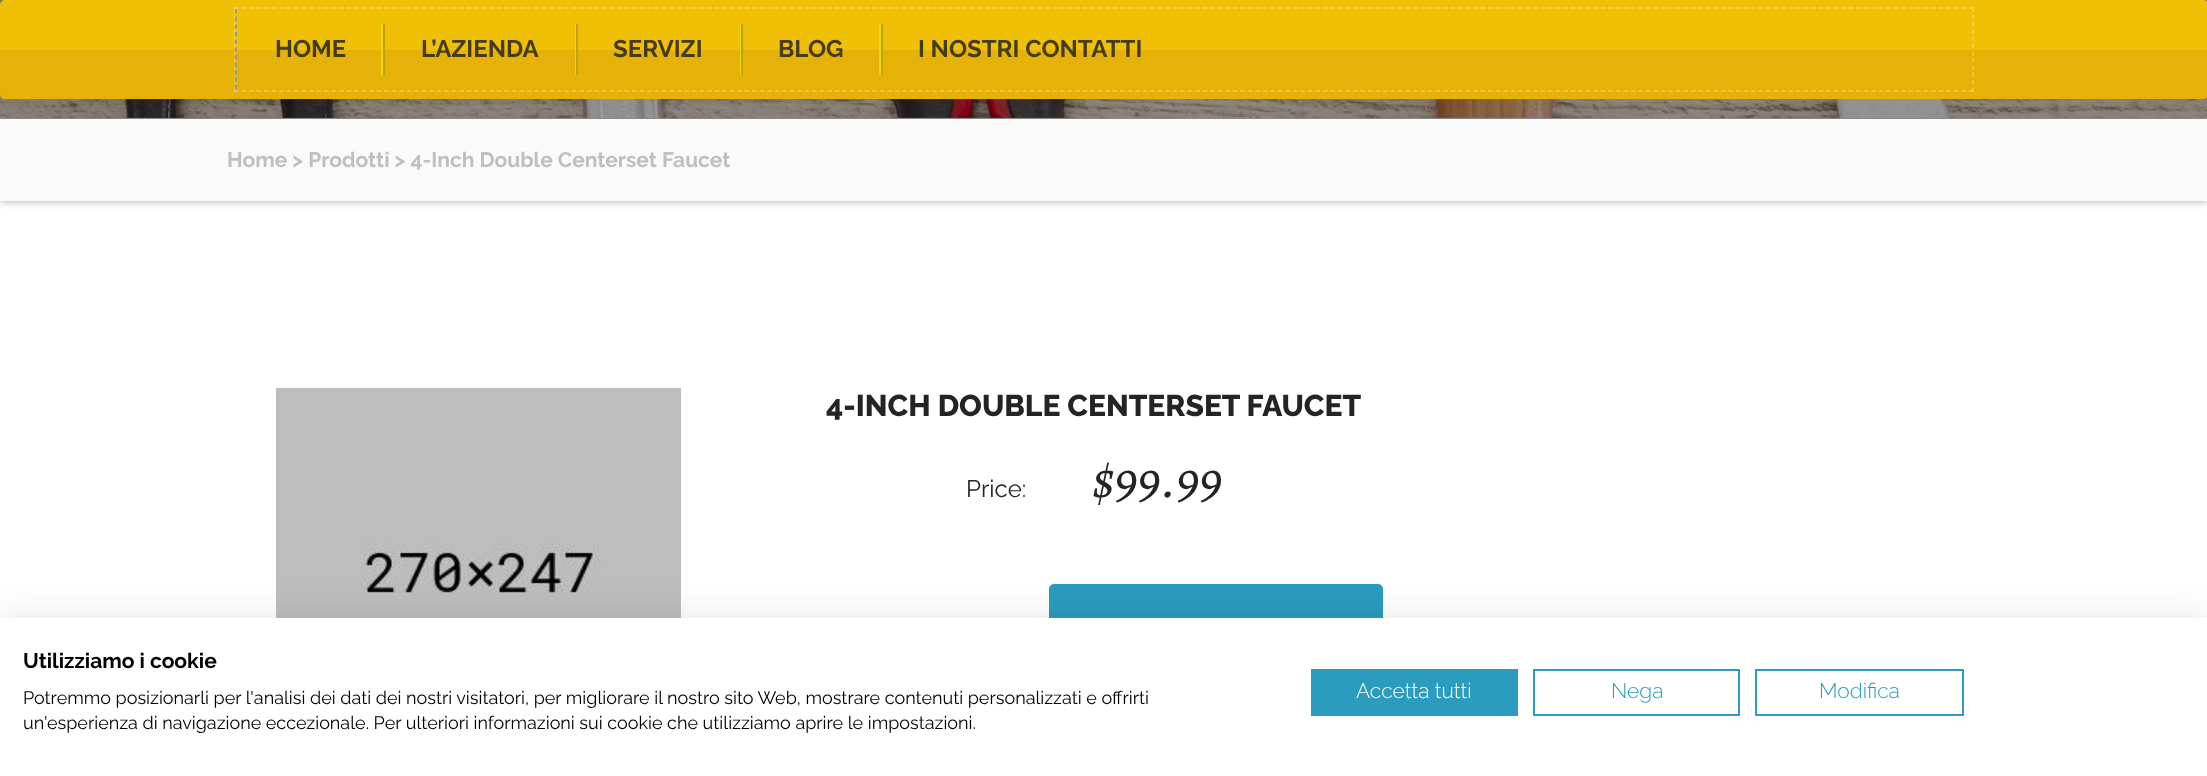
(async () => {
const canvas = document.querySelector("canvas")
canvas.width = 2207
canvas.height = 776
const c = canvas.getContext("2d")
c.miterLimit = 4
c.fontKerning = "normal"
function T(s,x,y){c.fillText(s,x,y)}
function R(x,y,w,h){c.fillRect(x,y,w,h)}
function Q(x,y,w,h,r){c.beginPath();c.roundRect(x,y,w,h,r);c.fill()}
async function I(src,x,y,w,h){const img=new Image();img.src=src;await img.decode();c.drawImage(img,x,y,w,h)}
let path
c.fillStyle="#fff"
R(0,0,2207,776)
c.fillStyle="#00000059"
c.filter="blur(4px)"
c.beginPath()
c.rect(0,119,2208,82)
c.fill()
c.filter="none"
await I("1.png",0,0,2207,118)
c.fillStyle="#00000033"
R(0,0,2207,119)
R(0,0,2207,119)
c.fillStyle="#f0c007"
path = new Path2D("M5 0h2198c3 0 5 2 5 5v45h-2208v-45c0-3 2-5 5-5z")
c.fill(path)
c.fillStyle="#e7b207"
path = new Path2D("M0 50h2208v44c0 3-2 5-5 5h-2198c-3 0-5-2-5-5z")
c.fill(path)
path = new Path2D("M234 8h1740")
c.strokeStyle="#f5d351"
c.lineWidth=1.5
c.setLineDash([4.5,3.01])
c.stroke(path)
path = new Path2D("M1973 7.5v84")
c.strokeStyle="#ffffff4d"
c.setLineDash([4.5,2.73])
c.stroke(path)
path = new Path2D("M234 91h1740")
c.setLineDash([4.5,3.01])
c.stroke(path)
path = new Path2D("M235 7.5v84")
c.setLineDash([4.5,2.73])
c.stroke(path)
path = new Path2D("M236 9v81")
c.strokeStyle="#689ac5"
c.setLineDash([4.5,3.15])
c.stroke(path)
c.font="bold 24px Raleway"
c.fillStyle="#443c1a"
T("HOME",275,57)
c.fillStyle="#ebd810"
R(381,24,2,51)
c.fillStyle="#c1a10f"
R(383,24,2,51)
c.fillStyle="#443c1a"
T("L’AZIENDA",421,57)
c.fillStyle="#ebd810"
R(575,24,1,51)
c.fillStyle="#c1a10f"
R(576,24,2,51)
c.fillStyle="#443c1a"
T("SERVIZI",613,57)
c.fillStyle="#ebd810"
R(740,24,1,51)
c.fillStyle="#c1a10f"
R(741,24,2,51)
c.fillStyle="#443c1a"
T("BLOG",778,57)
c.fillStyle="#ebd810"
R(879,24,2,51)
c.fillStyle="#c1a10f"
R(881,24,2,51)
c.fillStyle="#443c1a"
T("I NOSTRI CONTATTI",918,57)
c.fillStyle="#fafafa"
R(0,119,2207,82)
c.font="bold 21px Raleway"
c.fillStyle="#bfbfbf"
T("Home > Prodotti > 4-Inch Double Centerset Faucet",227,167)
await I("2.png",276,388,405,230)
c.font="800 30px Raleway"
c.fillStyle="#242424"
T("4-INCH DOUBLE CENTERSET FAUCET",826,416)
c.font="24px Raleway"
T("Price:",966,497)
c.font="italic 52.5px Alegreya"
T("$99.99",1092,497)
c.fillStyle="#2b9cbe"
Q(1049,584,334,141,5)
c.fillStyle="#0000001a"
c.filter="blur(18px)"
c.beginPath()
c.rect(0,618,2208,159)
c.fill()
c.filter="none"
c.fillStyle="#fff"
R(0,618,2207,158)
c.font="bold 21px Raleway"
c.fillStyle="#000"
T("Utilizziamo i cookie",23,668)
c.font="18px Raleway"
T("Potremmo posizionarli per l'analisi dei dati dei nostri visitatori, per migliorare il nostro sito Web, mostrare contenuti personalizzati e offrirti",23,704)
T("un'esperienza di navigazione eccezionale. Per ulteriori informazioni sui cookie che utilizziamo aprire le impostazioni.",23,729)
c.fillStyle="#2b9cbe"
R(1311,669,207,47)
c.font="300 21px Raleway"
c.fillStyle="#fff"
T("Accetta tutti",1356,698)
c.strokeStyle="#2b9cbe"
c.lineWidth=2
c.setLineDash([])
c.strokeRect(1534,670,205,45)
c.fillStyle="#2b9cbe"
T("Nega",1611,698)
c.strokeRect(1756,670,207,45)
T("Modifica",1819,698)
})()
